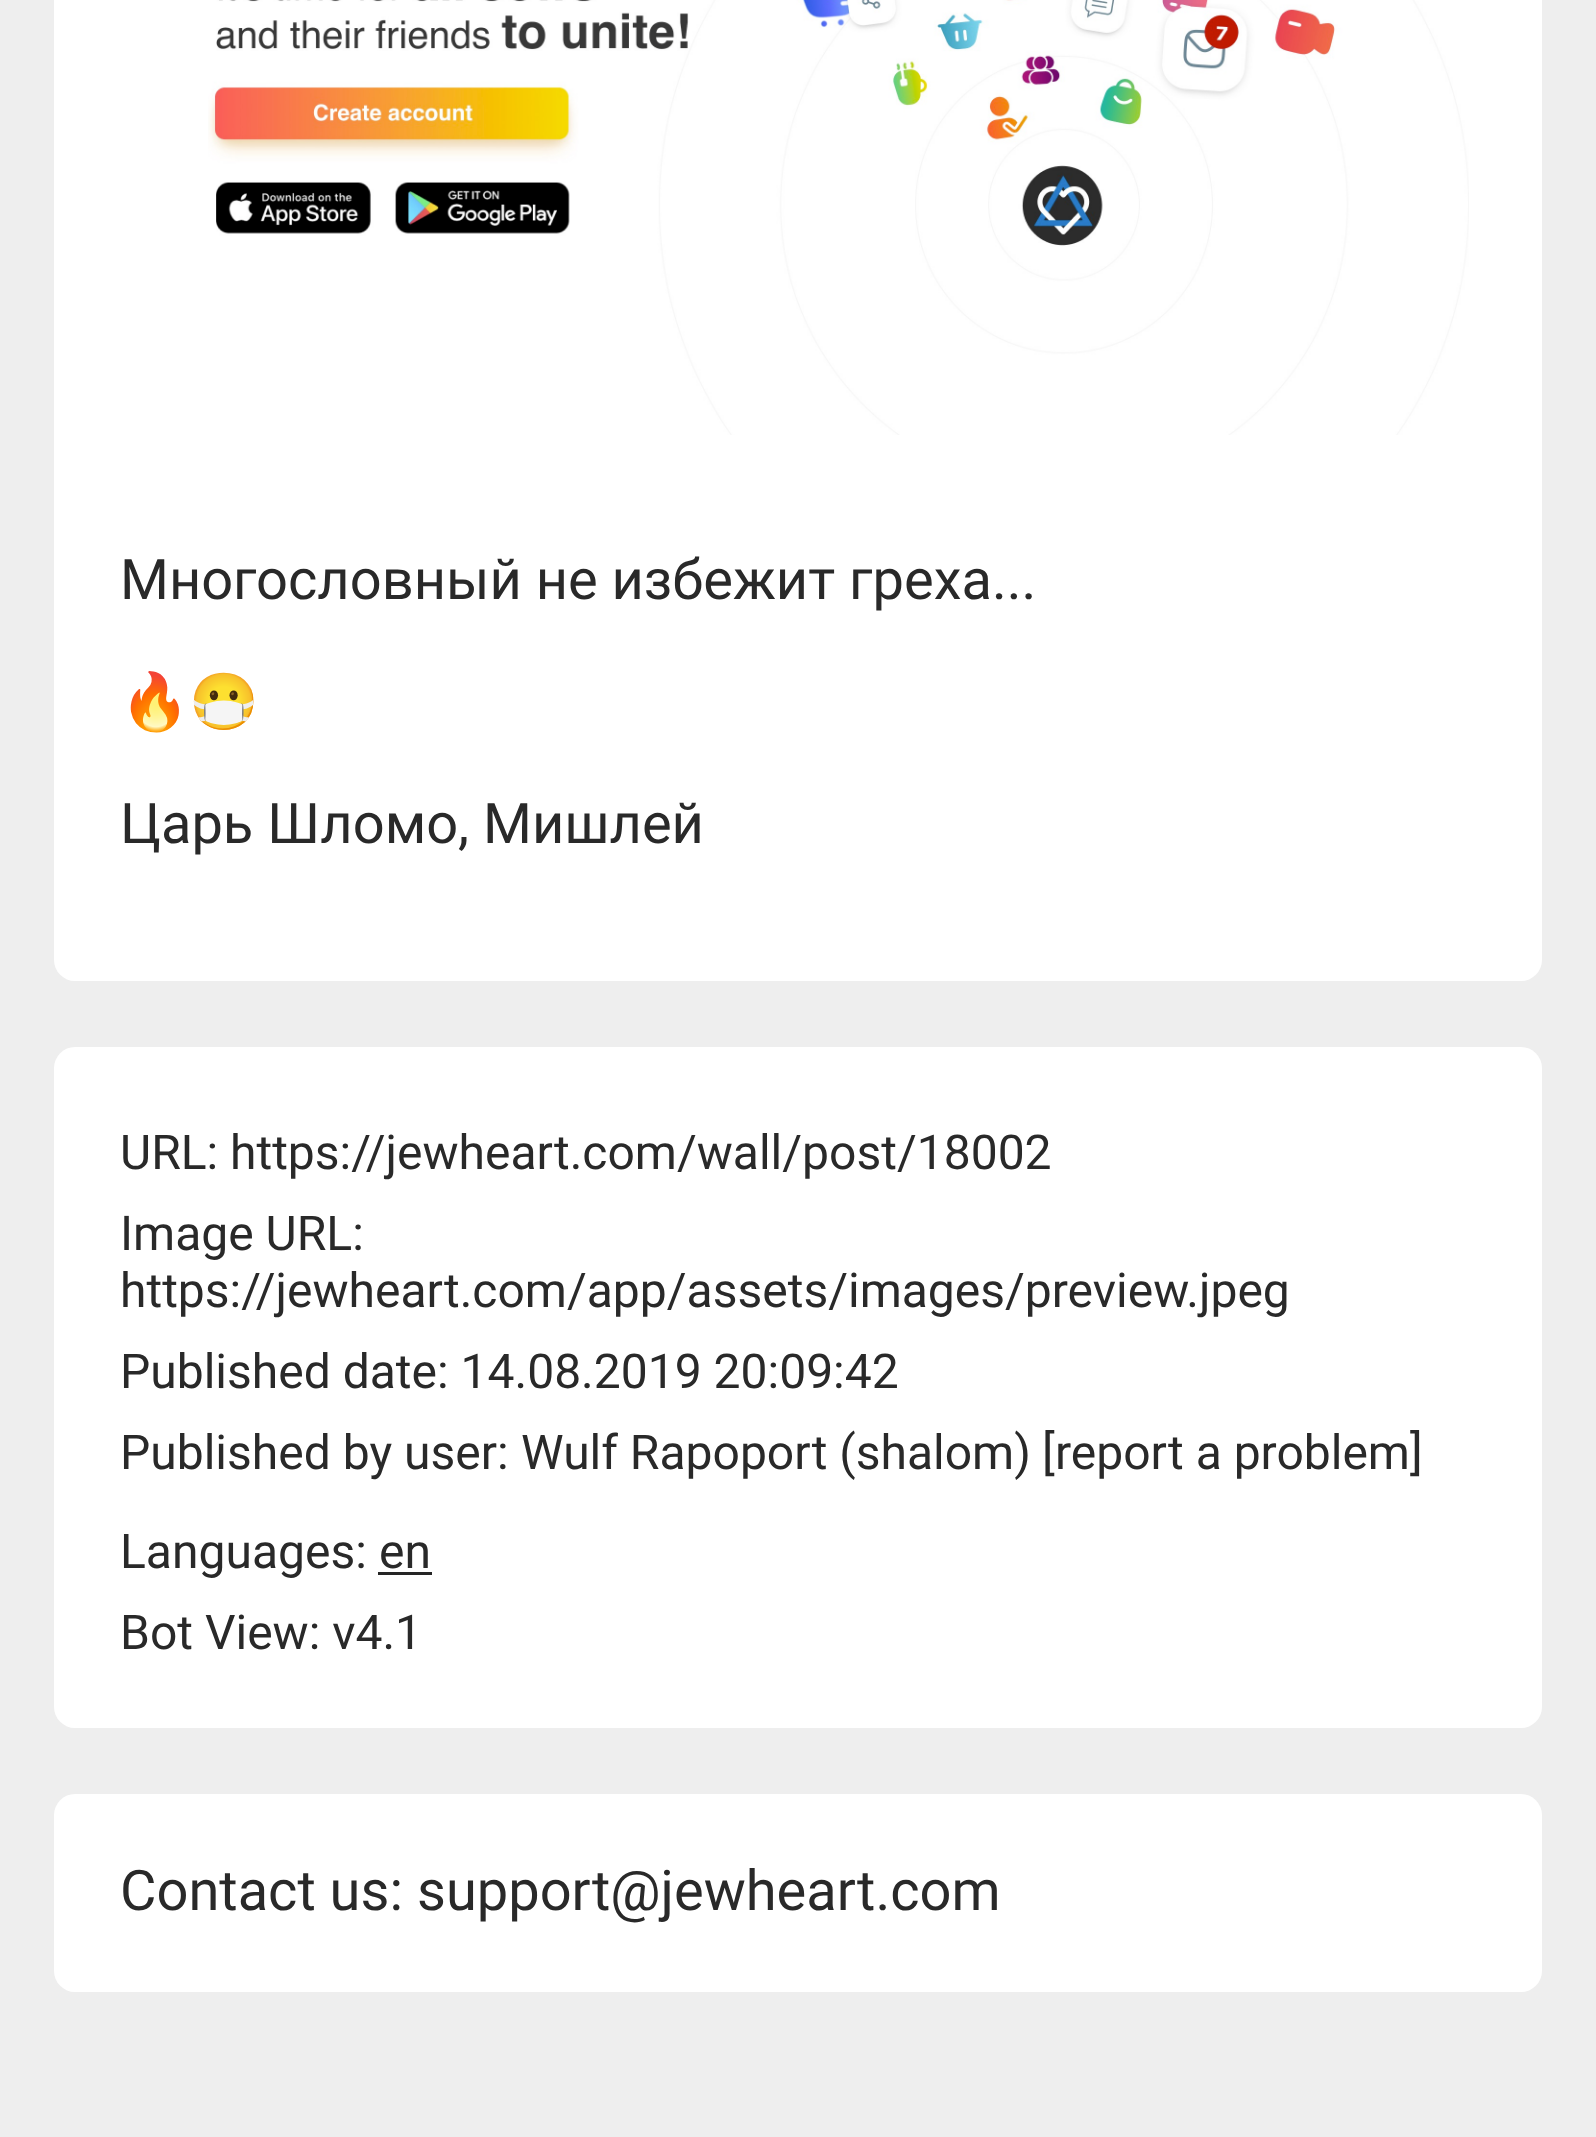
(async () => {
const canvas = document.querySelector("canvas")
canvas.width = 1596
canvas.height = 2137
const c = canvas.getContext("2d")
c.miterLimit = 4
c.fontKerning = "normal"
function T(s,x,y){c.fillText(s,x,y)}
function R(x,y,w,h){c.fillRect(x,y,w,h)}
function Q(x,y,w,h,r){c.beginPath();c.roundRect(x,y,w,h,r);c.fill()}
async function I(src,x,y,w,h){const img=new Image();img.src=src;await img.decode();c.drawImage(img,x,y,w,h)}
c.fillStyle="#eee"
R(0,0,1596,2137)
c.fillStyle="#fff"
Q(54,-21,1488,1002,21)
await I("1.png",208,0,1261,435)
c.font="56px Roboto"
c.fillStyle="#292929"
T("Многословный не избежит греха...",120,599)
c.font="56px Noto Color Emoji"
T("🔥😷",120,721)
c.font="56px Roboto"
T("Царь Шломо, Мишлей",120,843)
c.fillStyle="#fff"
Q(54,1047,1488,681,21)
c.font="48px Roboto"
c.fillStyle="#292929"
T("URL:",120,1169)
T("https://jewheart.com/wall/post/18002",230,1169)
T("Image URL:",120,1250)
T("https://jewheart.com/app/assets/images/preview.jpeg",120,1307)
T("Published date: 14.08.2019 20:09:42",120,1388)
T("Published by user:",120,1469)
T("Wulf Rapoport (shalom)",521,1469)
T("[",1042,1469)
T("report a problem",1055,1469)
T("]",1410,1469)
T("Languages:",120,1568)
T("en",379,1568)
c.fillStyle="#252525"
R(378,1572,54,3)
c.fillStyle="#292929"
T("Bot View: v4.1",120,1649)
c.fillStyle="#fff"
Q(54,1794,1488,198,21)
c.font="56px Roboto"
c.fillStyle="#292929"
T("Contact us:",120,1910)
T("support@jewheart.com",417,1910)
})()
